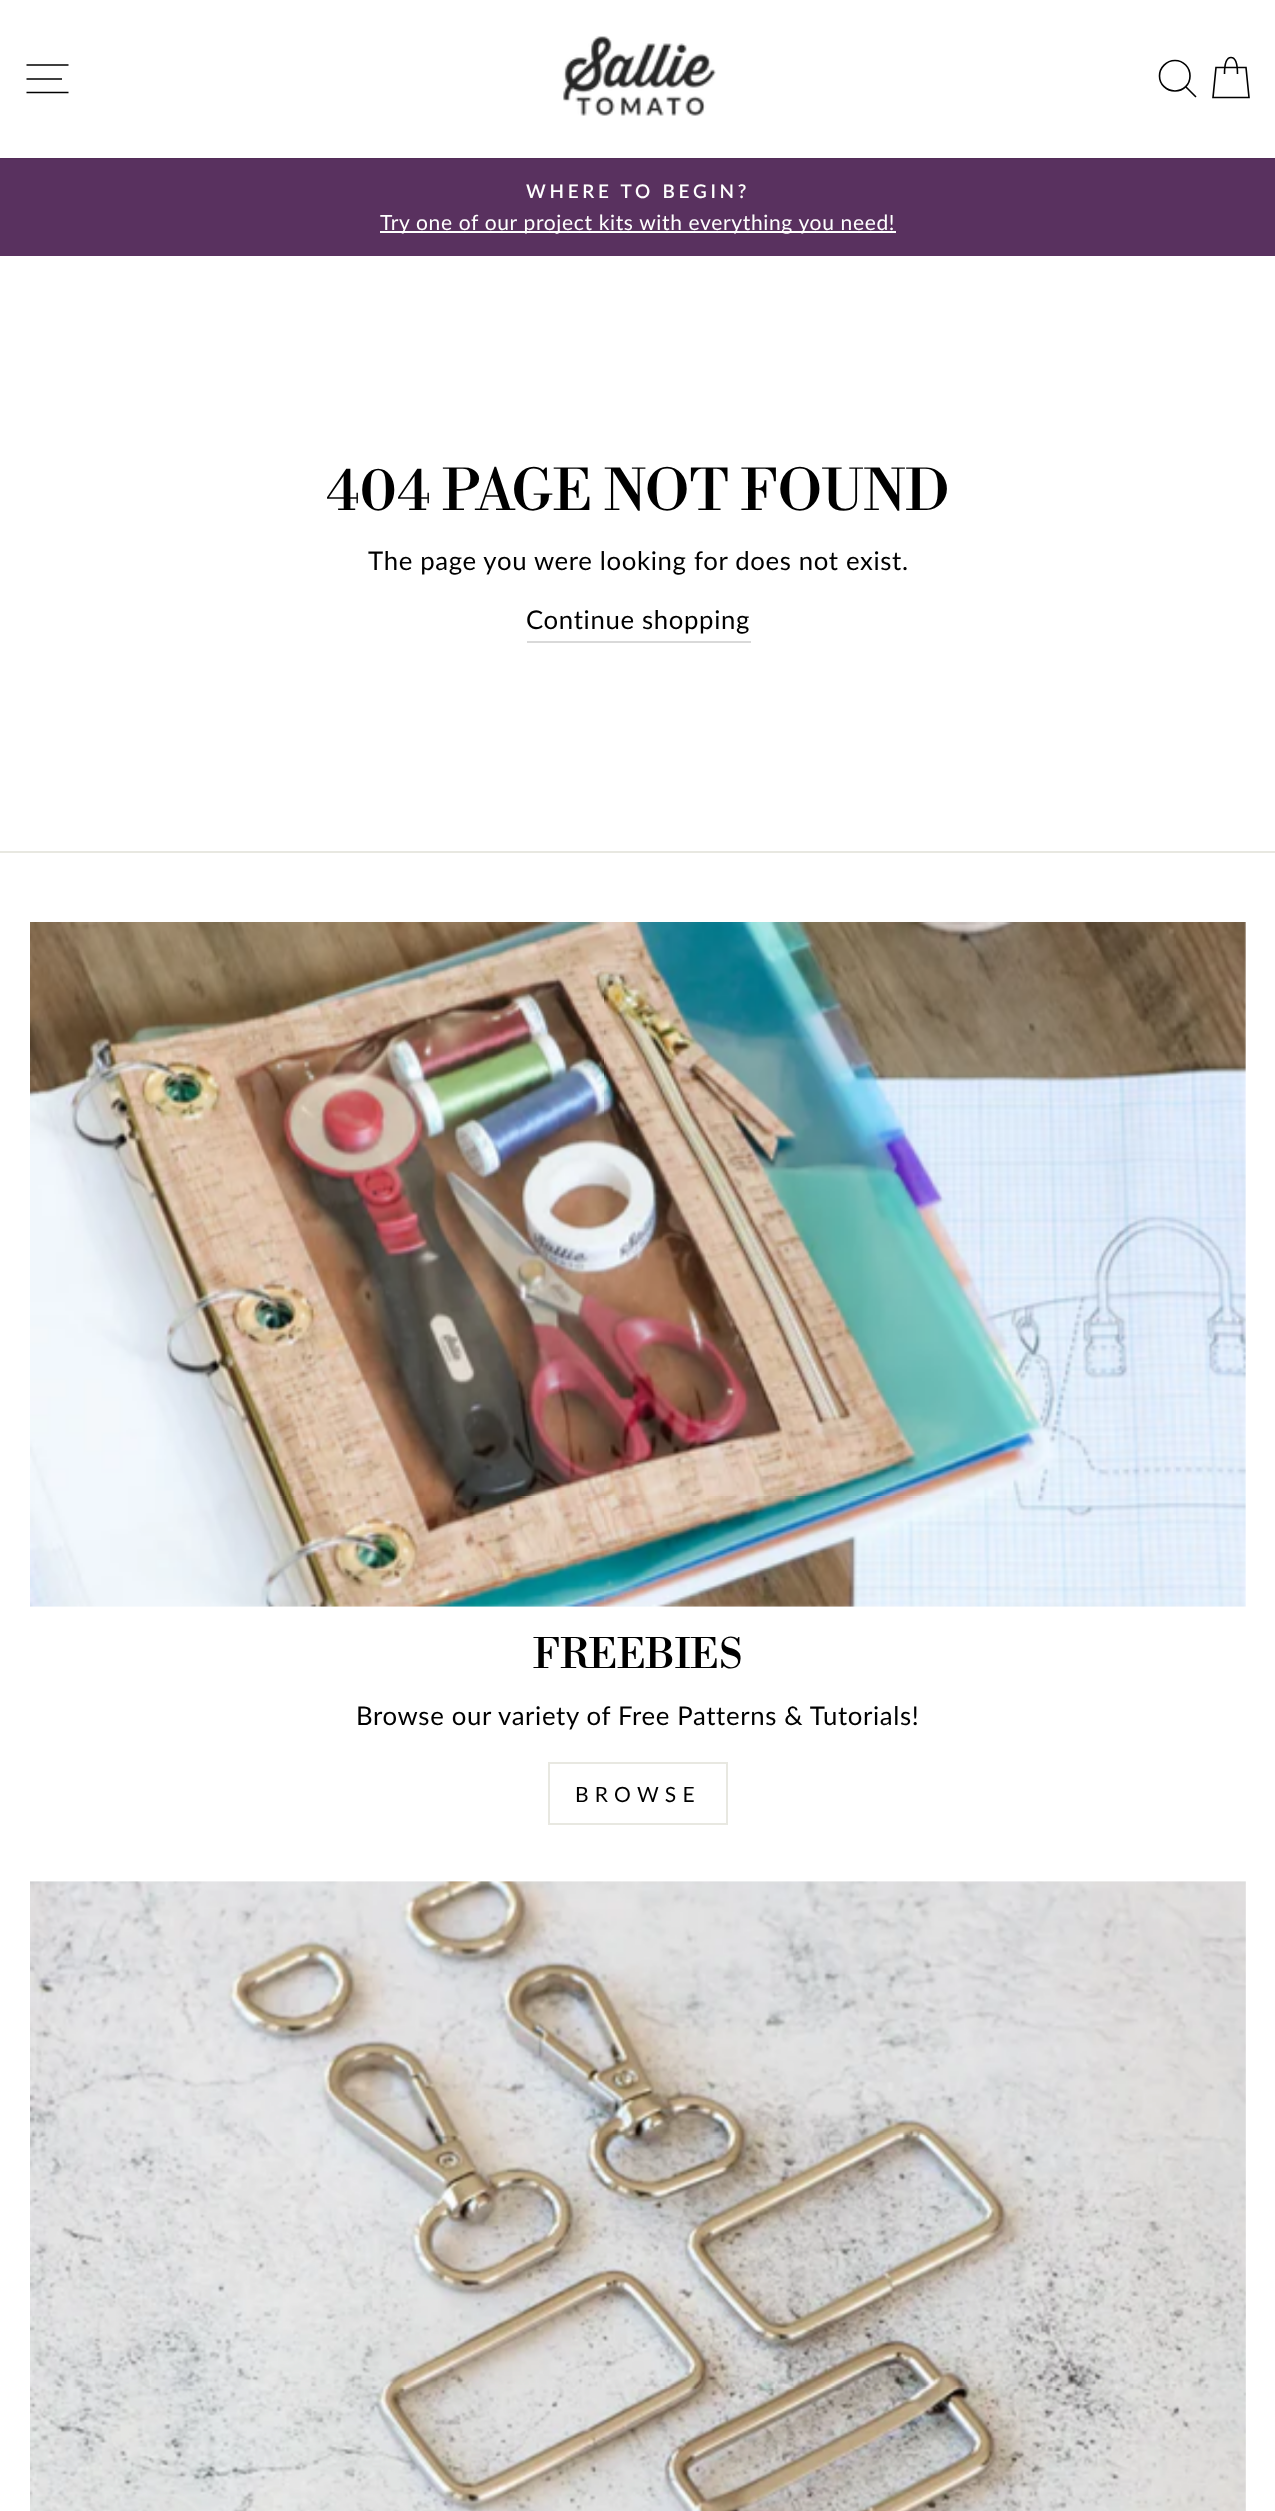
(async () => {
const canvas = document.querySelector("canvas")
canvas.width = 1275
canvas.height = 2511
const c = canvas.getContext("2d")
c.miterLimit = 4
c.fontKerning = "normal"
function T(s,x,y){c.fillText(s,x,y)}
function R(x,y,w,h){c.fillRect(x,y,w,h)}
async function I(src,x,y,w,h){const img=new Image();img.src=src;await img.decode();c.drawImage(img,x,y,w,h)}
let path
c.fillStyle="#fff"
R(0,0,1275,2511)
c.fillStyle="#59315f"
R(0,158,1275,98)
c.fillStyle="#00000033"
c.filter="blur(1px)"
c.beginPath()
c.rect(0,0,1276,158)
c.fill()
c.filter="none"
c.fillStyle="#fff"
R(0,0,1275,158)
path = new Path2D("M26.5 65h42m-42 14h35.5m-35.5 13.5h42")
c.strokeStyle="#000"
c.lineWidth=1.6
c.stroke(path)
await I("1.png",563,36,153,80)
path = new Path2D("M1190 76c0 8.5-6.5 15-15 15c-8.5 0-15.5-6.5-15.5-15c0-8.5 7-15.5 15.5-15.5c8.5 0 15 7 15 15.5zm6 21l-10-10")
c.stroke(path)
path = new Path2D("M1224.5 74c0-13 3-16.5 6.5-16.5c3.5 0 6.5 3.5 6.5 16.5m-21.5-6.5h30l3 30h-36z")
c.stroke(path)
c.letterSpacing="3.75px"
c.font="600 18.9px Lato"
T("WHERE TO BEGIN?",526,198)
R(380,231,516,2)
c.letterSpacing="0.65px"
c.font="21px Lato"
T("Try one of our project kits with everything you need!",380,230)
c.letterSpacing="0px"
c.font="56.5px Libre Bodoni"
c.fillStyle="#000"
T("404 PAGE NOT FOUND",326,510)
c.letterSpacing="0.65px"
c.font="25.75px Lato"
T("The page you were looking for does not exist.",368,570)
c.fillStyle="#d9d9d9"
R(527,641,224,2)
c.fillStyle="#000"
T("Continue shopping",526,629)
c.fillStyle="#e8e8e1"
R(0,851,1275,2)
await I("2.png",30,922,1216,685)
c.letterSpacing="0px"
c.font="41.25px Libre Bodoni"
c.fillStyle="#000"
T("FREEBIES",533,1668)
c.letterSpacing="0.65px"
c.font="25.75px Lato"
T("Browse our variety of Free Patterns & Tutorials!",356,1725)
c.strokeStyle="#e8e8e1"
c.lineWidth=2
c.strokeRect(549,1763,178,61)
c.letterSpacing="6.25px"
c.font="21px Lato"
T("BROWSE",575,1802)
await I("3.png",30,1881,1216,630)
})()
